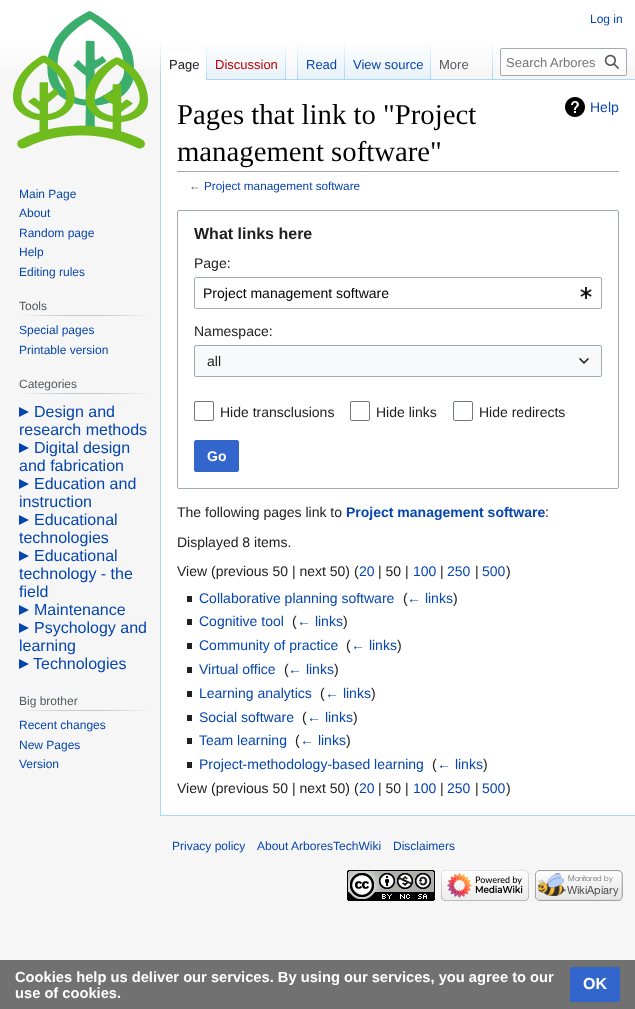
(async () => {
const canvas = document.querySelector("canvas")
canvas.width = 635
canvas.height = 1009
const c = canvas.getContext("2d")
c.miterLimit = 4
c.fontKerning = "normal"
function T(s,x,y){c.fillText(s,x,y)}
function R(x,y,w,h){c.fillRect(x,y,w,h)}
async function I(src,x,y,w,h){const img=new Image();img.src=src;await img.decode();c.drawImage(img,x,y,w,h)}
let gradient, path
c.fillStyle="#f6f6f6"
R(0,0,635,1009)
gradient = c.createLinearGradient(318,0,318,80)
gradient.addColorStop(.5,"#fff")
gradient.addColorStop(1,"#f6f6f6")
c.fillStyle = gradient
R(0,0,635,69)
c.font="12px Liberation Sans"
c.fillStyle="#0645ad"
T("Log in",590,23)
c.fillStyle="#a7d7f9"
R(160,815,475,1)
R(160,79,1,737)
gradient = c.createLinearGradient(161,40,161,80)
gradient.addColorStop(0,"#a7d7f900")
gradient.addColorStop(1,"#a7d7f9")
c.fillStyle = gradient
R(160,40,1,40)
c.fillStyle="#fff"
R(161,51,45,29)
gradient = c.createLinearGradient(207,40,207,80)
gradient.addColorStop(0,"#fff")
gradient.addColorStop(1,"#a7d7f9")
c.fillStyle = gradient
R(206,40,1,40)
c.font="13px Liberation Sans"
c.fillStyle="#202122"
T("Page",169,69)
gradient = c.createLinearGradient(247,80,247,40)
gradient.addColorStop(0,"#77c1f6")
gradient.addColorStop(.03,"#e8f2f8")
gradient.addColorStop(1,"#fff")
c.fillStyle = gradient
R(207,46,79,34)
gradient = c.createLinearGradient(286,40,286,80)
gradient.addColorStop(0,"#a7d7f900")
gradient.addColorStop(1,"#a7d7f9")
c.fillStyle = gradient
R(285,40,1,40)
c.fillStyle="#ba0000"
T("Discussion",215,69)
c.fillStyle="#a7d7f9"
R(286,79,349,1)
gradient = c.createLinearGradient(298,40,298,80)
gradient.addColorStop(0,"#a7d7f900")
gradient.addColorStop(1,"#a7d7f9")
c.fillStyle = gradient
R(297,40,1,40)
gradient = c.createLinearGradient(322,80,322,40)
gradient.addColorStop(0,"#77c1f6")
gradient.addColorStop(.03,"#e8f2f8")
gradient.addColorStop(1,"#fff")
c.fillStyle = gradient
R(298,46,47,33)
gradient = c.createLinearGradient(345,40,345,80)
gradient.addColorStop(0,"#a7d7f900")
gradient.addColorStop(1,"#a7d7f9")
c.fillStyle = gradient
R(344,40,1,40)
c.fillStyle="#0645ad"
T("Read",306,69)
gradient = c.createLinearGradient(388,80,388,40)
gradient.addColorStop(0,"#77c1f6")
gradient.addColorStop(.03,"#e8f2f8")
gradient.addColorStop(1,"#fff")
c.fillStyle = gradient
R(345,46,86,33)
gradient = c.createLinearGradient(431,40,431,80)
gradient.addColorStop(0,"#a7d7f900")
gradient.addColorStop(1,"#a7d7f9")
c.fillStyle = gradient
R(430,40,1,40)
c.fillStyle="#0645ad"
T("View source",353,69)
gradient = c.createLinearGradient(493,40,493,80)
gradient.addColorStop(0,"#a7d7f900")
gradient.addColorStop(1,"#a7d7f9")
c.fillStyle = gradient
R(492,40,1,40)
c.fillStyle="#54595d"
T("More",439,69)
c.fillStyle="#ffffff80"
c.beginPath()
c.roundRect(500.5,48.5,126,27,1.5)
c.fill()
c.strokeStyle="#a2a9b1"
c.stroke()
c.fillStyle="#72777d"
T("Search Arbores",506,67)
await I("1.png",604,54,15,15)
await I("2.png",13,11,135,138)
c.font="12px Liberation Sans"
c.fillStyle="#0645ad"
T("Main Page",19,198)
T("About",19,217)
T("Random page",19,237)
T("Help",19,256)
T("Editing rules",19,276)
gradient = c.createLinearGradient(19,316,150,316)
gradient.addColorStop(0,"#f6f6f6")
gradient.addColorStop(.33,"#c8ccd1")
gradient.addColorStop(.66,"#c8ccd1")
gradient.addColorStop(1,"#f6f6f6")
c.fillStyle = gradient
R(19,315,131,1)
c.fillStyle="#54595d"
T("Tools",19,310)
c.fillStyle="#0645ad"
T("Special pages",19,334)
T("Printable version",19,354)
gradient = c.createLinearGradient(19,394,150,394)
gradient.addColorStop(0,"#f6f6f6")
gradient.addColorStop(.33,"#c8ccd1")
gradient.addColorStop(.66,"#c8ccd1")
gradient.addColorStop(1,"#f6f6f6")
c.fillStyle = gradient
R(19,393,131,1)
c.fillStyle="#54595d"
T("Categories",19,388)
c.fillStyle="#0645ad"
path = new Path2D("M19 417v-10l10 5z")
c.fill(path)
c.font="16px Liberation Sans"
T("Design and",34,417)
T("research methods",19,435)
path = new Path2D("M19 453v-10l10 5z")
c.fill(path)
T("Digital design",34,453)
T("and fabrication",19,471)
path = new Path2D("M19 489v-10l10 5z")
c.fill(path)
T("Education and",34,489)
T("instruction",19,507)
path = new Path2D("M19 525v-10l10 5z")
c.fill(path)
T("Educational",34,525)
T("technologies",19,543)
path = new Path2D("M19 561v-10l10 5z")
c.fill(path)
T("Educational",34,561)
T("technology - the",19,579)
T("field",19,597)
path = new Path2D("M19 615v-10l10 5z")
c.fill(path)
T("Maintenance",34,615)
path = new Path2D("M19 633v-10l10 5z")
c.fill(path)
T("Psychology and",34,633)
T("learning",19,651)
path = new Path2D("M19 669v-10l10 5z")
c.fill(path)
T("Technologies",33,669)
gradient = c.createLinearGradient(19,711,150,711)
gradient.addColorStop(0,"#f6f6f6")
gradient.addColorStop(.33,"#c8ccd1")
gradient.addColorStop(.66,"#c8ccd1")
gradient.addColorStop(1,"#f6f6f6")
c.fillStyle = gradient
R(19,710,131,1)
c.font="12px Liberation Sans"
c.fillStyle="#54595d"
T("Big brother",19,705)
c.fillStyle="#0645ad"
T("Recent changes",19,729)
T("New Pages",19,749)
T("Version",19,768)
c.fillStyle="#fff"
R(161,80,474,735)
c.fillStyle="#a2a9b1"
R(177,171,442,1)
c.font="28.75px Liberation Serif"
c.fillStyle="#000"
T("Pages that link to \"Project",177,124)
T("management software\"",177,161)
await I("3.png",565,97,20,20)
c.font="14px Liberation Sans"
c.fillStyle="#0645ad"
T("Help",590,112)
c.font="11.75px Liberation Sans"
c.fillStyle="#54595d"
T("←",189,190)
c.fillStyle="#0645ad"
T("Project management software",204,190)
c.beginPath()
c.roundRect(177.5,210.5,441,278,1.5)
c.stroke()
c.font="bold 16px Liberation Sans"
c.fillStyle="#202122"
T("What links here",194,239)
c.font="14px Liberation Sans"
T("Page:",194,268)
c.beginPath()
c.roundRect(194.5,277.5,407,31,1.5)
c.stroke()
c.fillStyle="#000"
T("Project management software",203,298)
await I("4.png",580,287,12,12)
c.fillStyle="#202122"
T("Namespace:",194,336)
c.fillStyle="#f8f9fa"
R(194,345,408,32)
c.beginPath()
c.roundRect(194.5,345.5,407,31,1.5)
c.stroke()
c.fillStyle="#202122"
T("all",207,366)
await I("5.png",579,358,10,6)
c.beginPath()
c.roundRect(194.5,401.5,19,19,1.5)
c.strokeStyle="#72777d"
c.stroke()
T("Hide transclusions",220,417)
c.beginPath()
c.roundRect(350.5,401.5,19,19,1.5)
c.stroke()
T("Hide links",376,417)
c.beginPath()
c.roundRect(453.5,401.5,19,19,1.5)
c.stroke()
T("Hide redirects",479,417)
c.fillStyle="#36c"
c.beginPath()
c.roundRect(194.5,440.5,44,31,1.5)
c.fill()
c.strokeStyle="#36c"
c.stroke()
c.font="bold 14px Liberation Sans"
c.fillStyle="#fff"
T("Go",207,461)
c.font="14px Liberation Sans"
c.fillStyle="#202122"
T("The following pages link to",177,517)
c.font="bold 14px Liberation Sans"
c.fillStyle="#0645ad"
T("Project management software",346,517)
c.font="14px Liberation Sans"
c.fillStyle="#202122"
T(":",545,517)
T("Displayed 8 items.",177,547)
T("View (previous 50 | next 50) (",177,576)
c.fillStyle="#0645ad"
T("20",359,576)
c.fillStyle="#202122"
T("| 50 |",378,576)
c.fillStyle="#0645ad"
T("100",413,576)
c.fillStyle="#202122"
T("|",440,576)
c.fillStyle="#0645ad"
T("250",447,576)
c.fillStyle="#202122"
T("|",475,576)
c.fillStyle="#0645ad"
T("500",482,576)
c.fillStyle="#202122"
T(")",506,576)
R(187,596,5,6)
c.fillStyle="#0645ad"
T("Collaborative planning software",199,603)
c.fillStyle="#202122"
T("(",403,603)
c.fillStyle="#0645ad"
T("← links",407,603)
c.fillStyle="#202122"
T(")",453,603)
R(187,619,5,6)
c.fillStyle="#0645ad"
T("Cognitive tool",199,626)
c.fillStyle="#202122"
T("(",292,626)
c.fillStyle="#0645ad"
T("← links",297,626)
c.fillStyle="#202122"
T(")",343,626)
R(187,643,5,6)
c.fillStyle="#0645ad"
T("Community of practice",199,650)
c.fillStyle="#202122"
T("(",346,650)
c.fillStyle="#0645ad"
T("← links",351,650)
c.fillStyle="#202122"
T(")",397,650)
R(187,667,5,6)
c.fillStyle="#0645ad"
T("Virtual office",199,674)
c.fillStyle="#202122"
T("(",284,674)
c.fillStyle="#0645ad"
T("← links",288,674)
c.fillStyle="#202122"
T(")",334,674)
R(187,691,5,6)
c.fillStyle="#0645ad"
T("Learning analytics",199,698)
c.fillStyle="#202122"
T("(",320,698)
c.fillStyle="#0645ad"
T("← links",325,698)
c.fillStyle="#202122"
T(")",371,698)
R(187,715,5,6)
c.fillStyle="#0645ad"
T("Social software",199,722)
c.fillStyle="#202122"
T("(",302,722)
c.fillStyle="#0645ad"
T("← links",307,722)
c.fillStyle="#202122"
T(")",353,722)
R(187,738,5,6)
c.fillStyle="#0645ad"
T("Team learning",199,745)
c.fillStyle="#202122"
T("(",295,745)
c.fillStyle="#0645ad"
T("← links",300,745)
c.fillStyle="#202122"
T(")",346,745)
R(187,762,5,6)
c.fillStyle="#0645ad"
T("Project-methodology-based learning",199,769)
c.fillStyle="#202122"
T("(",432,769)
c.fillStyle="#0645ad"
T("← links",437,769)
c.fillStyle="#202122"
T(")",483,769)
T("View (previous 50 | next 50) (",177,793)
c.fillStyle="#0645ad"
T("20",359,793)
c.fillStyle="#202122"
T("| 50 |",378,793)
c.fillStyle="#0645ad"
T("100",413,793)
c.fillStyle="#202122"
T("|",440,793)
c.fillStyle="#0645ad"
T("250",447,793)
c.fillStyle="#202122"
T("|",475,793)
c.fillStyle="#0645ad"
T("500",482,793)
c.fillStyle="#202122"
T(")",506,793)
c.font="12px Liberation Sans"
c.fillStyle="#0645ad"
T("Privacy policy",172,850)
T("About ArboresTechWiki",257,850)
T("Disclaimers",393,850)
await I("6.png",347,870,88,31)
await I("7.png",441,870,88,31)
await I("8.png",535,870,88,31)
c.fillStyle="#717171"
R(0,960,635,49)
c.font="bold 14.7px Liberation Sans"
c.fillStyle="#fff"
T("Cookies help us deliver our services. By using our services, you agree to our",15,982)
T("use of cookies.",15,998)
c.fillStyle="#36c"
c.beginPath()
c.roundRect(570.5,967.5,49,34,1.5)
c.fill()
c.stroke()
c.font="bold 16px Liberation Sans"
c.fillStyle="#fff"
T("OK",583,989)
})()
